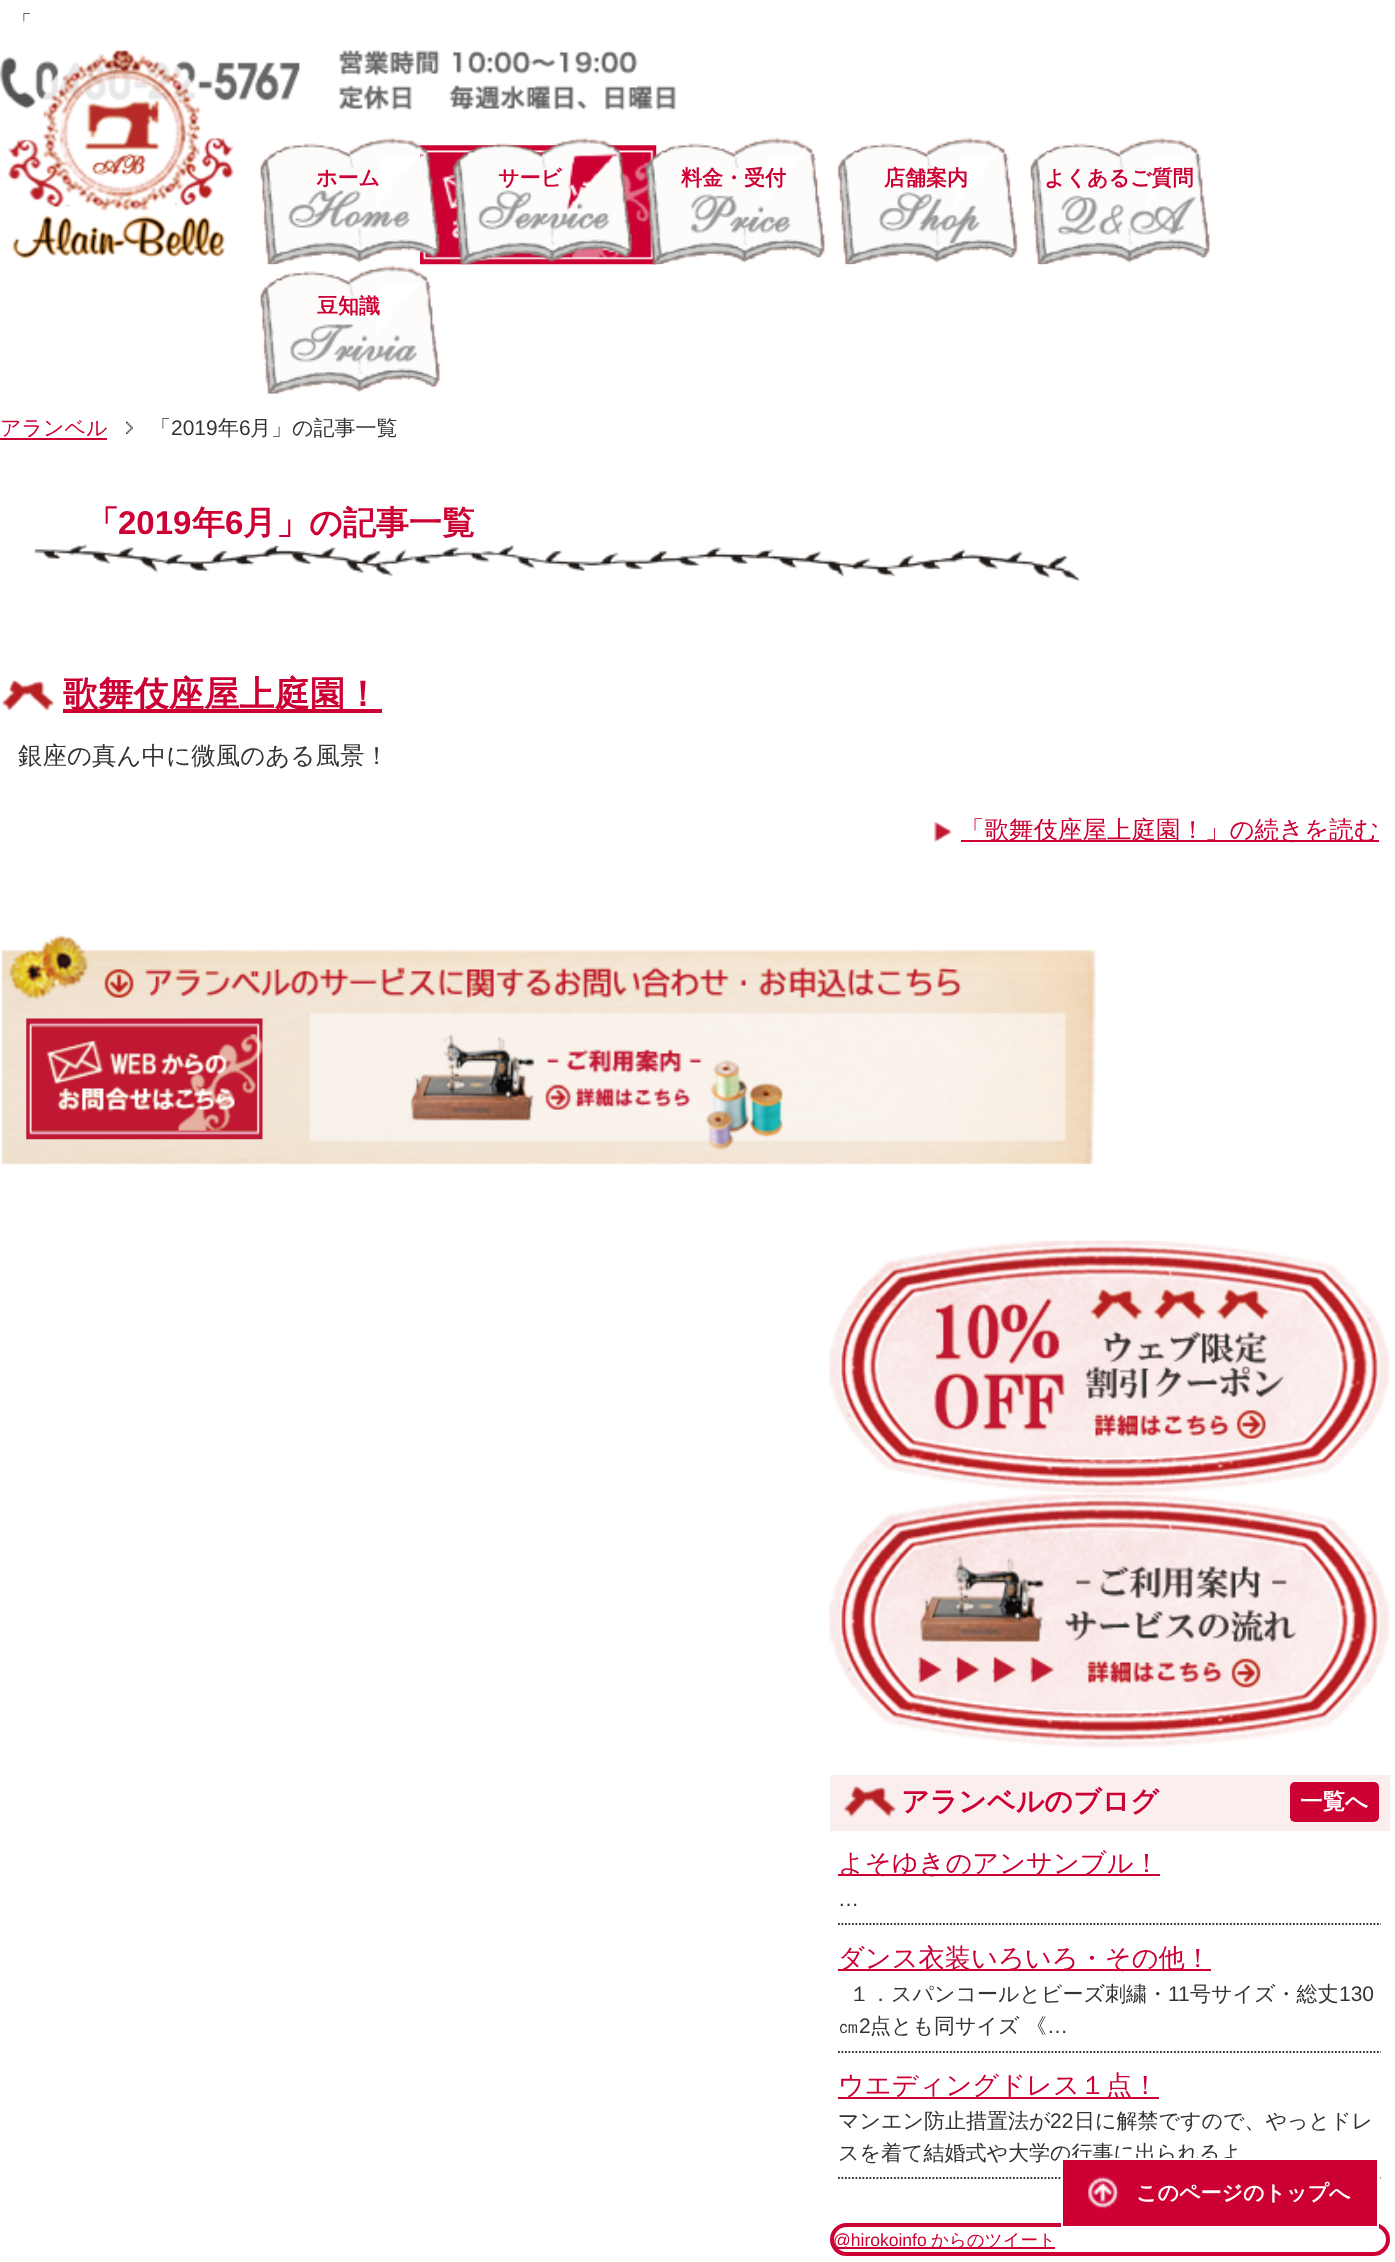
(async () => {
const canvas = document.querySelector("canvas")
canvas.width = 1395
canvas.height = 2262
const c = canvas.getContext("2d")
c.miterLimit = 4
c.fontKerning = "normal"
function T(s,x,y){c.fillText(s,x,y)}
function R(x,y,w,h){c.fillRect(x,y,w,h)}
function Q(x,y,w,h,r){c.beginPath();c.roundRect(x,y,w,h,r);c.fill()}
async function I(src,x,y,w,h){const img=new Image();img.src=src;await img.decode();c.drawImage(img,x,y,w,h)}
let path
c.fillStyle="#fff"
R(0,0,1395,2262)
c.font="500 21px WenQuanYi Zen Hei"
c.fillStyle="#333"
T("「",11,30)
await I("2.png",0,21,676,90)
await I("1.png",7,50,227,209)
await I("3.png",420,145,237,120)
await I("4.png",260,138,180,127)
c.font="bold 21px WenQuanYi Zen Hei"
c.fillStyle="#c03"
T("ホーム",316,185)
await I("5.png",452,138,181,127)
T("サービ",498,185)
await I("6.png",645,138,181,127)
T("料金・受付",681,185)
await I("7.png",837,138,181,127)
T("店舗案内",884,185)
await I("8.png",1030,138,181,127)
T("よくあるご質問",1044,185)
await I("9.png",260,265,181,129)
T("豆知識",317,313)
c.font="500 21px WenQuanYi Zen Hei"
T("アランベル",0,435)
R(0,438,107,2)
await I("10.png",126,421,7,13)
c.fillStyle="#333"
T("「",150,435)
c.font="21px Liberation Sans"
T("2019",171,435)
c.font="500 21px WenQuanYi Zen Hei"
T("年",218,435)
c.font="21px Liberation Sans"
T("6",239,435)
c.font="500 21px WenQuanYi Zen Hei"
T("月」の記事一覧",250,435)
await I("11.png",34,544,1046,37)
c.font="bold 33px WenQuanYi Zen Hei"
c.fillStyle="#c03"
T("「",86,534)
c.font="bold 33px Liberation Sans"
T("2019",118,534)
c.font="bold 33px WenQuanYi Zen Hei"
T("年",192,534)
c.font="bold 33px Liberation Sans"
T("6",225,534)
c.font="bold 33px WenQuanYi Zen Hei"
T("月」の記事一覧",243,534)
await I("12.png",1,680,54,31)
R(63,709,319,4)
c.font="bold 35.25px WenQuanYi Zen Hei"
T("歌舞伎座屋上庭園！",63,706)
c.font="500 24.5px WenQuanYi Zen Hei"
c.fillStyle="#333"
T("銀座の真ん中に微風のある風景！",18,764)
await I("13.png",934,822,19,21)
c.fillStyle="#c03"
R(961,840,418,2)
T("「歌舞伎座屋上庭園！」の続きを読む",960,838)
await I("14.png",1,934,1096,231)
await I("15.png",26,1018,237,122)
await I("16.png",410,1034,373,117)
await I("17.png",829,1240,561,255)
await I("18.png",829,1494,561,254)
c.fillStyle="#fbeeee"
R(830,1775,560,56)
await I("19.png",843,1786,53,31)
c.font="bold 28px WenQuanYi Zen Hei"
c.fillStyle="#c03"
T("アランベルのブログ",901,1811)
Q(1290,1782,89,40,5)
c.font="bold 22.5px WenQuanYi Zen Hei"
c.fillStyle="#fff"
T("一覧へ",1300,1809)
c.fillStyle="#c03"
R(838,1874,322,2)
c.font="500 26.25px WenQuanYi Zen Hei"
T("よそゆきのアンサンブル！",838,1872)
path = new Path2D("M838 1924h543")
c.strokeStyle="#333"
c.lineWidth=1.8
c.setLineDash([1.75,1.75])
c.stroke(path)
c.font="21px Liberation Sans"
c.fillStyle="#333"
T("…",838,1906)
c.fillStyle="#c03"
R(838,1969,373,2)
c.font="500 26.25px WenQuanYi Zen Hei"
T("ダンス衣装いろいろ・その他！",838,1967)
path = new Path2D("M838 2052h543")
c.stroke(path)
c.font="500 21px WenQuanYi Zen Hei"
c.fillStyle="#333"
T("１．スパンコールとビーズ刺繍・",849,2001)
c.font="21px Liberation Sans"
T("11",1168,2001)
c.font="500 21px WenQuanYi Zen Hei"
T("号サイズ・総丈",1190,2001)
c.font="21px Liberation Sans"
T("130",1339,2001)
c.font="500 21px WenQuanYi Zen Hei"
T("㎝",838,2033)
c.font="21px Liberation Sans"
T("2",859,2033)
c.font="500 21px WenQuanYi Zen Hei"
T("点とも同サイズ 《",870,2033)
c.font="21px Liberation Sans"
T("…",1047,2033)
c.fillStyle="#c03"
R(838,2097,321,2)
c.font="500 26.25px WenQuanYi Zen Hei"
T("ウエディングドレス１点！",838,2094)
path = new Path2D("M838 2178h543")
c.stroke(path)
c.font="500 21px WenQuanYi Zen Hei"
c.fillStyle="#333"
T("マンエン防止措置法が",838,2128)
c.font="21px Liberation Sans"
T("22",1050,2128)
c.font="500 21px WenQuanYi Zen Hei"
T("日に解禁ですので、やっとドレ",1074,2128)
T("スを着て結婚式や大学の行事に出られるよ",838,2160)
c.beginPath()
c.roundRect(832,2225,556,29,14.5)
c.strokeStyle="#c03"
c.lineWidth=4
c.setLineDash([])
c.stroke()
c.fillStyle="#c03"
R(833,2247,222,2)
c.font="17.5px Liberation Sans"
T("@hirokoinfo",833,2246)
c.font="500 17.5px WenQuanYi Zen Hei"
T("からのツイート",931,2246)
R(1063,2160,314,64)
await I("20.png",1087,2176,32,33)
c.strokeStyle="#fff"
c.lineWidth=2
c.strokeRect(1062,2159,316,68)
c.font="bold 21px WenQuanYi Zen Hei"
c.fillStyle="#fff"
T("このページのトップへ",1136,2200)
})()
